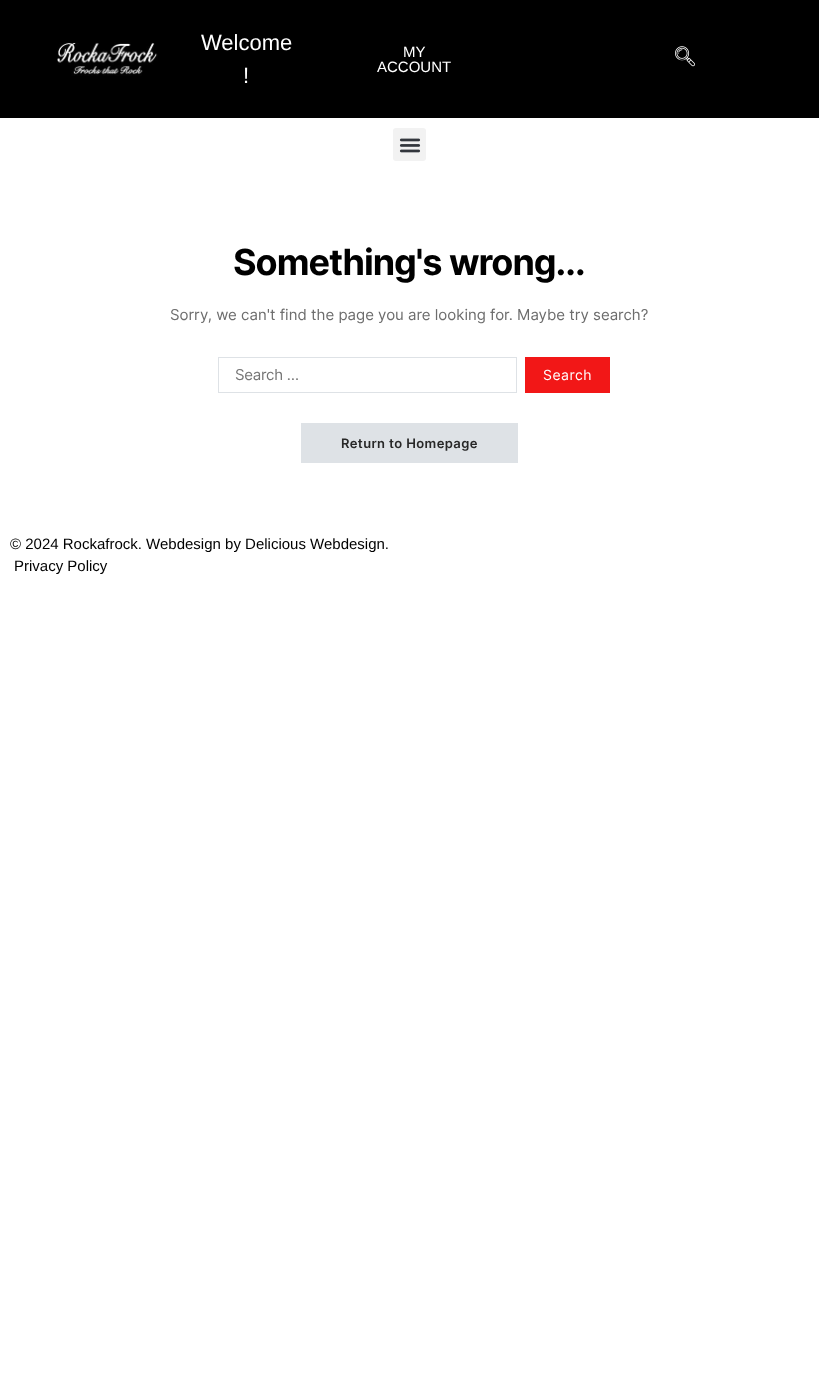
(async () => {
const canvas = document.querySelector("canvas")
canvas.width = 819
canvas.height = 1392
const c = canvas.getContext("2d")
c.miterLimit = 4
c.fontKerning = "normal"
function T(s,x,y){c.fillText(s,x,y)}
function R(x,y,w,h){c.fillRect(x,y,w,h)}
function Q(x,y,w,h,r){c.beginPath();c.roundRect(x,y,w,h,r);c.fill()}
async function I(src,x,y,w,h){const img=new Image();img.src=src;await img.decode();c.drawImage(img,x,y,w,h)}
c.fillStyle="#fff"
R(0,0,819,1392)
c.fillStyle="#000"
R(0,0,819,118)
await I("1.png",57,42,101,34)
c.font="22px Liberation Sans"
c.fillStyle="#fff"
T("Welcome",201,50)
T("!",243,83)
c.font="15px Liberation Sans"
T("MY",403,57)
T("ACCOUNT",377,72)
await I("2.png",675,46,20,21)
await I("3.png",679,59,10,4)
c.fillStyle="#f2f2f2"
Q(393,128,33,33,3)
await I("4.png",399,138,22,15)
c.letterSpacing="-1px"
c.font="bold 36px Inter"
c.fillStyle="#000"
T("Something's wrong...",233,275)
c.letterSpacing="0px"
c.font="15px Inter"
c.fillStyle="#6d6d6d"
T("Sorry, we can't find the page you are looking for. Maybe try search?",170,320)
c.strokeStyle="#dee2e6"
c.strokeRect(218.5,357.5,298,35)
c.letterSpacing="-0.25px"
c.fillStyle="#757575"
T("Search …",235,380)
c.fillStyle="#f21717"
R(525,357,85,36)
c.letterSpacing="0.5px"
c.font="14px Inter"
c.fillStyle="#fff"
T("Search",543,380)
c.fillStyle="#dee2e6"
R(301,423,217,40)
c.letterSpacing="0.4px"
c.font="600 13px Inter"
c.fillStyle="#282828"
T("Return to Homepage",341,448)
c.letterSpacing="0px"
c.font="15px Liberation Sans"
c.fillStyle="#000"
T("© 2024 Rockafrock. Webdesign by Delicious Webdesign.",10,549)
T("Privacy Policy",14,571)
})()
